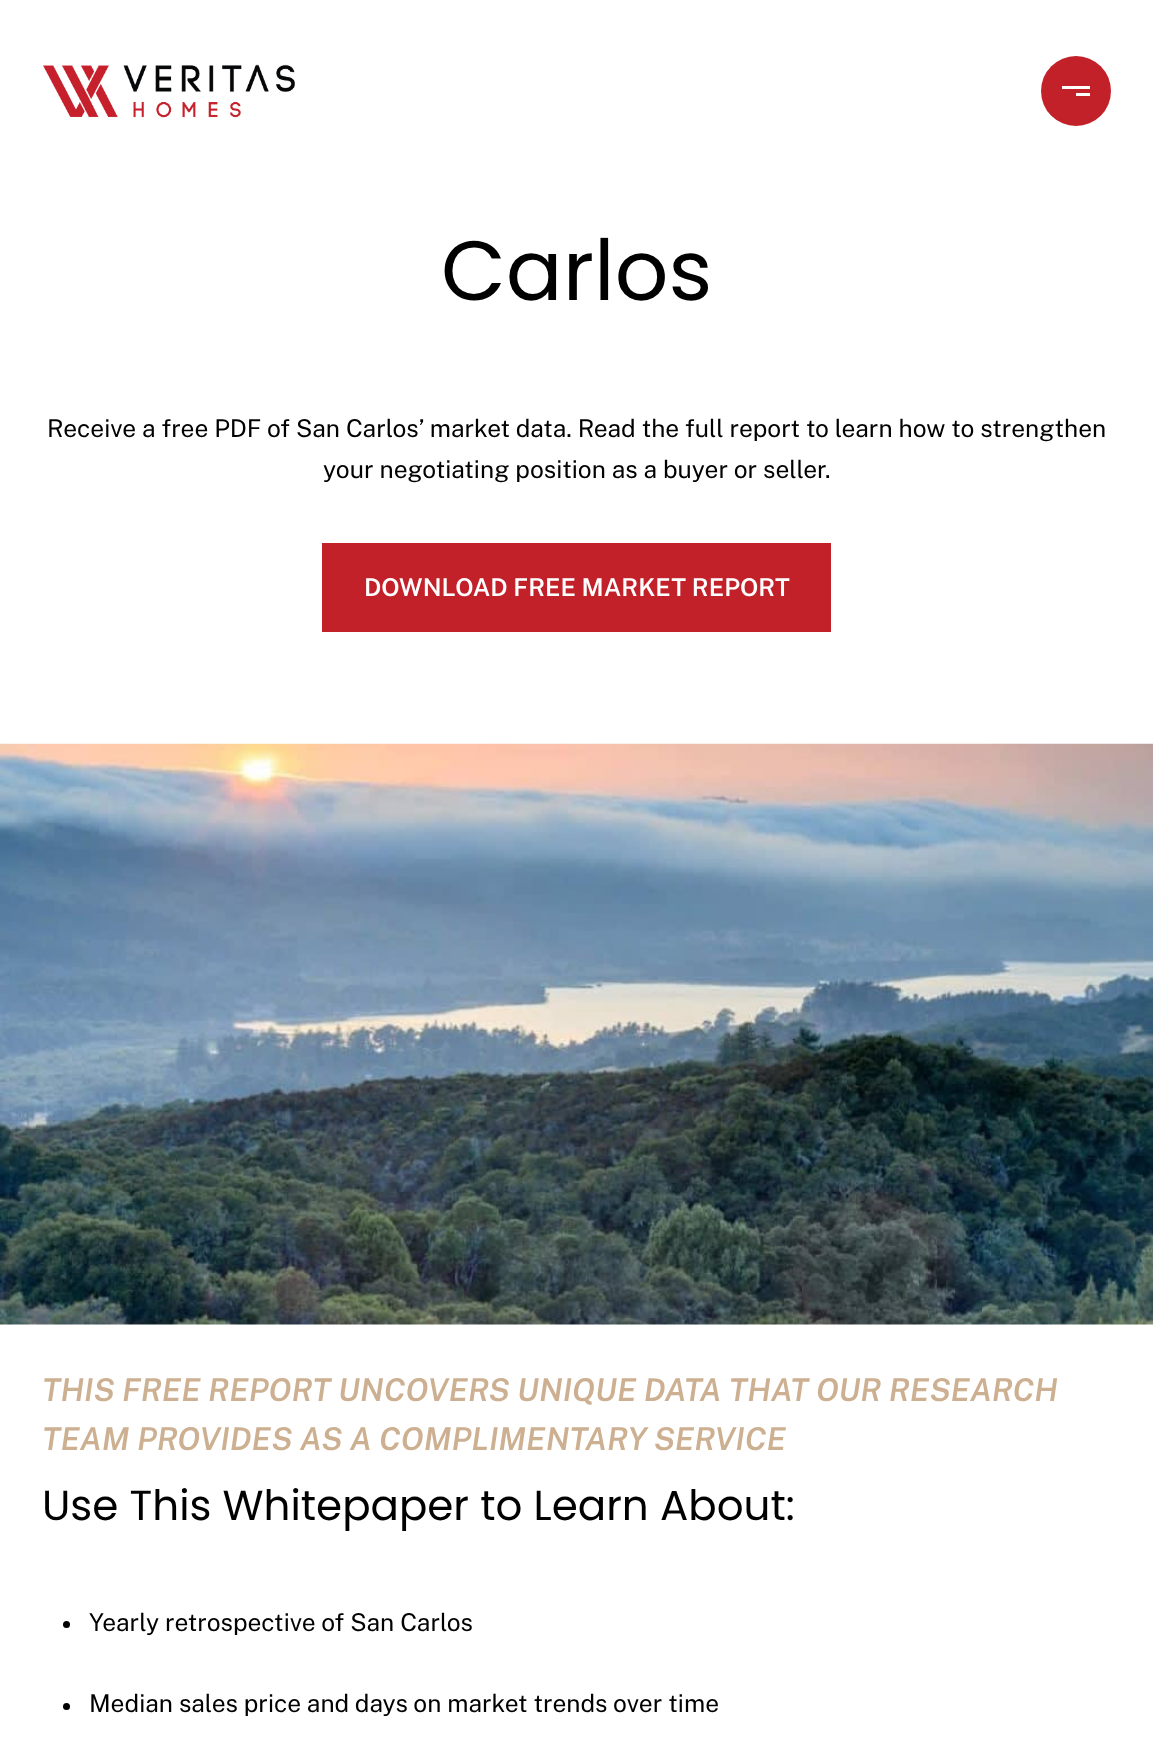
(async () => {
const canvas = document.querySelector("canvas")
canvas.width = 1153
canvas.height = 1742
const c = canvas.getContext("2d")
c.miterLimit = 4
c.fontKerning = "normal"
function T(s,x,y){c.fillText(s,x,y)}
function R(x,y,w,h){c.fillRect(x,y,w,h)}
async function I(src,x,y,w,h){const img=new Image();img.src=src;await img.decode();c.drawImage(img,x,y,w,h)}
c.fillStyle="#fff"
R(0,0,1153,1742)
await I("1.png",43,64,252,54)
c.fillStyle="#c2212a"
c.beginPath()
c.arc(1076,91,35,0,7)
c.fill()
c.fillStyle="#fff"
R(1062,86,28,3)
R(1076,93,14,3)
c.font="84px Poppins"
c.fillStyle="#000"
T("Carlos",441,300)
c.font="24.5px Public Sans"
T("Receive a free PDF of San Carlos’ market data. Read the full report to learn how to strengthen",47,437)
T("your negotiating position as a buyer or seller.",323,478)
c.fillStyle="#c2212a"
R(322,543,509,89)
c.font="600 24.5px Public Sans"
c.fillStyle="#fff"
T("DOWNLOAD FREE MARKET REPORT",364,596)
await I("2.png",0,743,1153,582)
c.font="italic 600 31.5px Public Sans"
c.fillStyle="#ccb091"
T("THIS FREE REPORT UNCOVERS UNIQUE DATA THAT OUR RESEARCH",42,1401)
T("TEAM PROVIDES AS A COMPLIMENTARY SERVICE",42,1450)
c.font="42px Poppins"
c.fillStyle="#000"
T("Use This Whitepaper to Learn About:",42,1520)
c.beginPath()
c.arc(66.5,1624.5,3.5,0,7)
c.fill()
c.font="24.5px Public Sans"
T("Yearly retrospective of San Carlos",89,1631)
c.beginPath()
c.arc(66.5,1706.5,3.5,0,7)
c.fill()
T("Median sales price and days on market trends over time",89,1712)
})()
